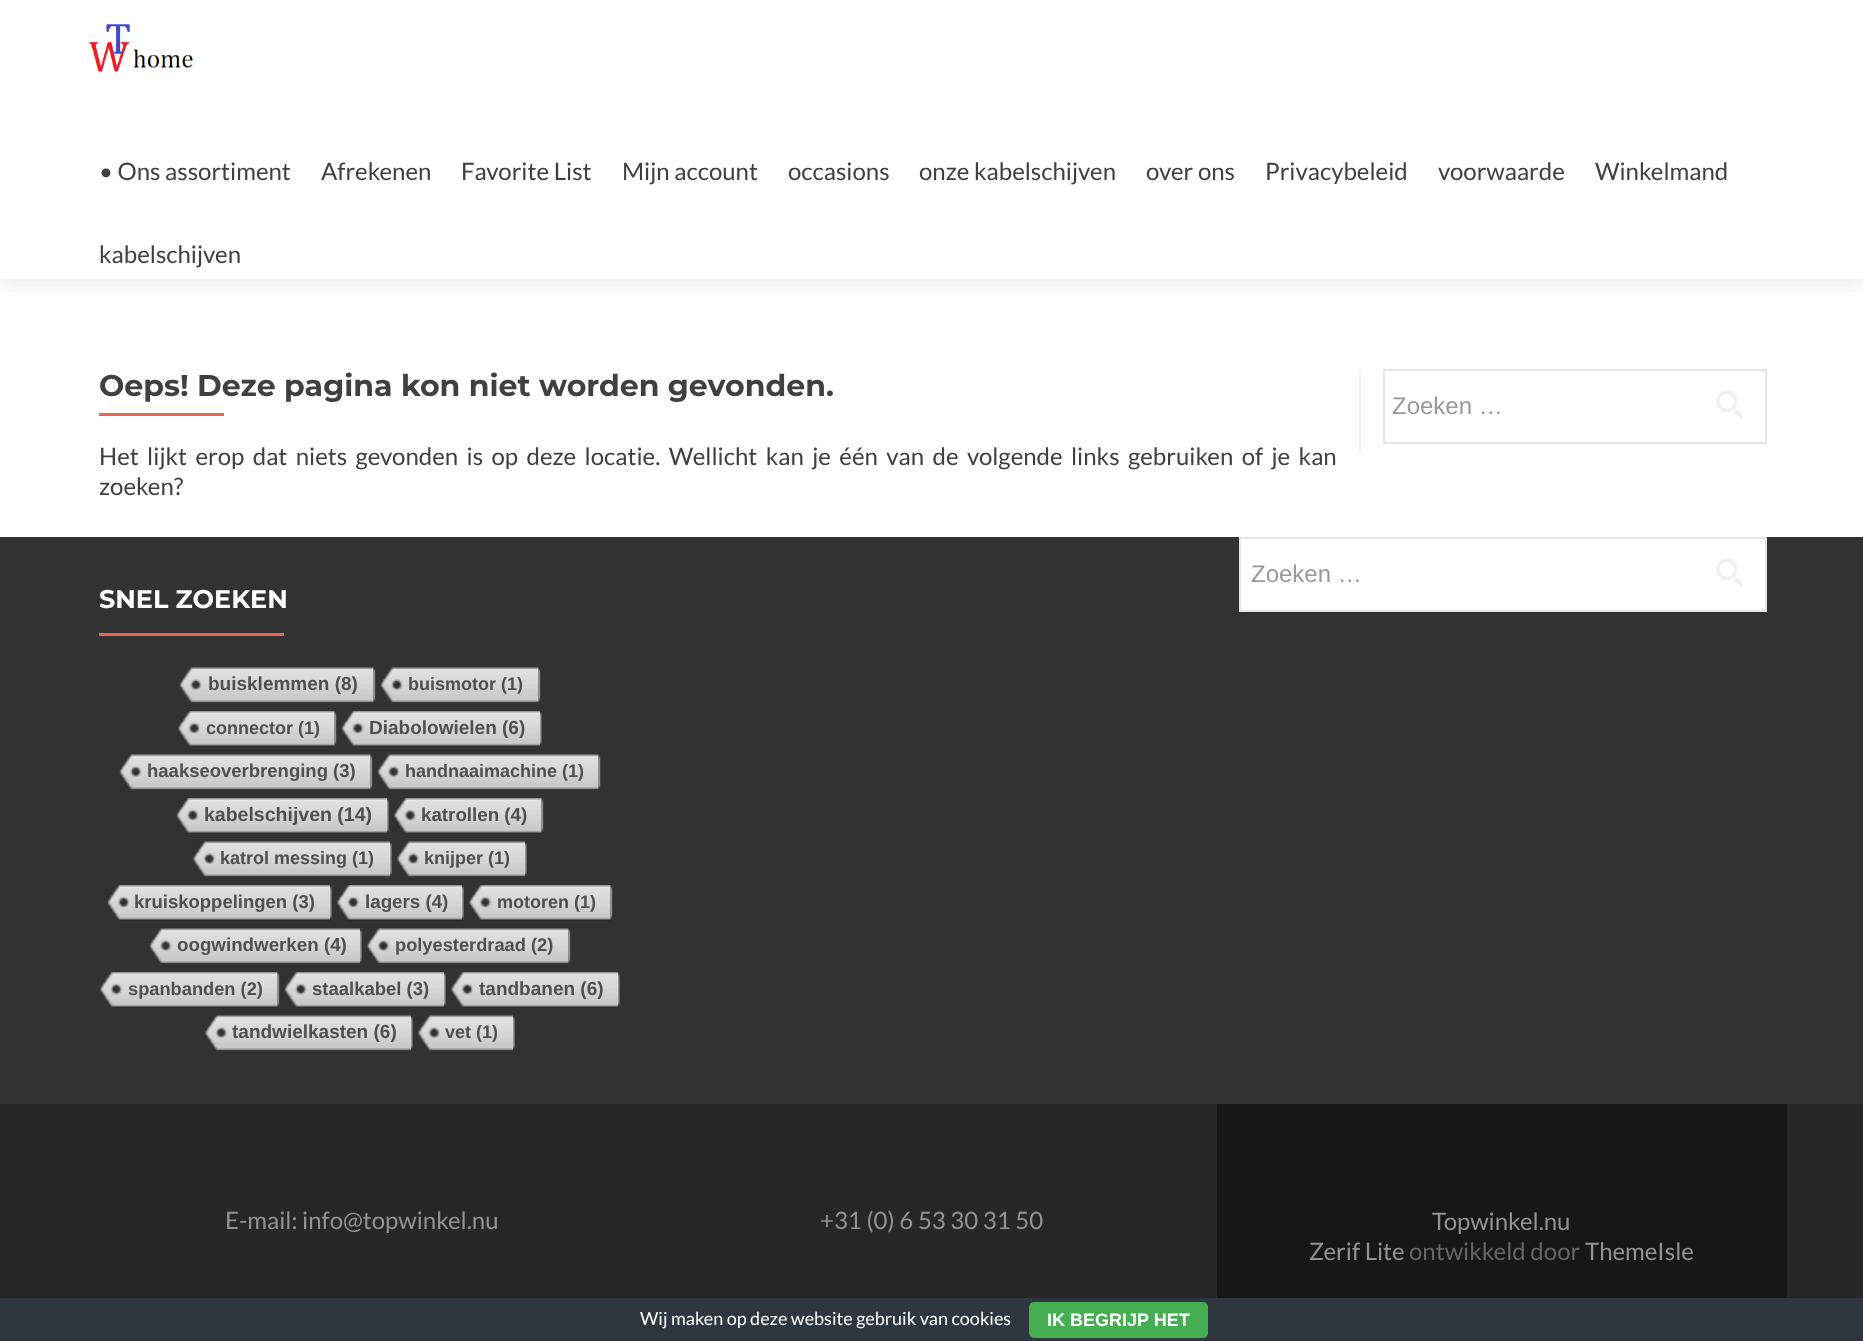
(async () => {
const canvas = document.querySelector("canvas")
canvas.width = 1863
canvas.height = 1341
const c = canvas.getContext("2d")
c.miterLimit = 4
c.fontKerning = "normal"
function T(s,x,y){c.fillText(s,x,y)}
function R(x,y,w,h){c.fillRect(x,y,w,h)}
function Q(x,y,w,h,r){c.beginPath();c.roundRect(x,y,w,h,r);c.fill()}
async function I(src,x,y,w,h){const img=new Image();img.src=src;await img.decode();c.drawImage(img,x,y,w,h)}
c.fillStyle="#fff"
R(0,0,1863,1341)
c.save()
c.beginPath()
c.rect(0,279,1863,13)
c.clip()
c.fillStyle="#32323214"
c.filter="blur(8px)"
c.beginPath()
c.rect(0,8,1863,279)
c.fill()
c.filter="none"
c.restore()
await I("1.png",88,24,105,48)
c.font="24px Lato"
c.fillStyle="#404040"
T("• Ons assortiment",99,180)
T("Afrekenen",321,180)
T("Favorite List",461,180)
T("Mijn account",622,180)
T("occasions",788,180)
T("onze kabelschijven",919,180)
T("over ons",1146,180)
T("Privacybeleid",1265,180)
T("voorwaarde",1438,180)
T("Winkelmand",1595,180)
T("kabelschijven",99,263)
c.font="bold 30px Montserrat"
T("Oeps! Deze pagina kon niet worden gevonden.",99,396)
c.fillStyle="#e96656"
R(99,413,125,3)
c.wordSpacing="3.8px"
c.font="24px Lato"
c.fillStyle="#404040"
T("Het lijkt erop dat niets gevonden is op deze locatie. Wellicht kan je één van de volgende links gebruiken of je kan",99,465)
c.wordSpacing="0px"
T("zoeken?",99,495)
c.fillStyle="#f2f2f2"
R(1359,369,2,83)
c.strokeStyle="#e6e6e6"
c.lineWidth=2
c.strokeRect(1384,370,382,73)
c.font="24px Liberation Sans"
c.fillStyle="#999"
T("Zoeken …",1392,414)
await I("2.png",1716,390,27,29)
c.fillStyle="#272727"
R(0,1104,1863,194)
c.fillStyle="#323232"
R(0,537,1863,567)
c.fillStyle="#fff"
c.beginPath()
c.rect(1240,538,526,73)
c.fill()
c.stroke()
c.fillStyle="#999"
T("Zoeken …",1251,582)
await I("2.png",1716,558,27,29)
c.font="bold 25.5px Montserrat"
c.fillStyle="#fff"
T("SNEL ZOEKEN",99,608)
c.fillStyle="#e96656"
R(99,633,185,3)
await I("3.png",179,667,195,36)
c.font="bold 19px Liberation Sans"
c.fillStyle="#4f4f4f"
T("buisklemmen (8)",208,690)
await I("4.png",373,669,3,32)
await I("5.png",380,667,159,36)
c.font="bold 18px Liberation Sans"
T("buismotor (1)",408,690)
await I("4.png",538,669,3,32)
await I("6.png",178,711,157,36)
T("connector (1)",206,734)
await I("7.png",334,712,3,33)
await I("8.png",341,711,199,36)
c.font="bold 19px Liberation Sans"
T("Diabolowielen (6)",369,734)
await I("9.png",540,712,2,33)
await I("10.png",119,754,252,36)
c.font="bold 18.5px Liberation Sans"
T("haakseoverbrenging (3)",147,777)
await I("4.png",370,756,3,32)
await I("11.png",377,754,222,36)
c.font="bold 18px Liberation Sans"
T("handnaaimachine (1)",405,777)
await I("4.png",598,756,3,32)
await I("12.png",176,798,211,36)
c.font="bold 19.5px Liberation Sans"
T("kabelschijven (14)",204,821)
await I("13.png",387,799,2,33)
await I("14.png",394,798,148,36)
c.font="bold 18.75px Liberation Sans"
T("katrollen (4)",421,821)
await I("7.png",541,799,3,33)
await I("15.png",193,841,197,36)
c.font="bold 18px Liberation Sans"
T("katrol messing (1)",220,864)
await I("16.png",390,843,2,32)
await I("17.png",397,841,128,36)
T("knijper (1)",424,864)
await I("16.png",525,843,2,32)
await I("18.png",107,885,223,36)
c.font="bold 18.5px Liberation Sans"
T("kruiskoppelingen (3)",134,908)
await I("13.png",330,886,2,33)
await I("19.png",337,885,125,36)
c.font="bold 18.75px Liberation Sans"
T("lagers (4)",365,908)
await I("13.png",462,886,2,33)
await I("20.png",469,885,142,36)
c.font="bold 18px Liberation Sans"
T("motoren (1)",497,908)
await I("7.png",610,886,3,33)
await I("21.png",149,928,211,36)
c.font="bold 18.75px Liberation Sans"
T("oogwindwerken (4)",177,951)
await I("16.png",360,930,2,32)
await I("22.png",367,928,202,36)
c.font="bold 18.25px Liberation Sans"
T("polyesterdraad (2)",395,951)
await I("4.png",568,930,3,32)
await I("23.png",100,972,178,36)
T("spanbanden (2)",128,995)
await I("7.png",277,973,3,33)
await I("24.png",284,972,160,36)
c.font="bold 18.5px Liberation Sans"
T("staalkabel (3)",312,995)
await I("13.png",444,973,2,33)
await I("25.png",451,972,167,36)
c.font="bold 19px Liberation Sans"
T("tandbanen (6)",479,995)
await I("9.png",618,973,2,33)
await I("26.png",205,1015,206,36)
T("tandwielkasten (6)",232,1038)
await I("16.png",411,1017,2,32)
await I("27.png",418,1015,95,36)
c.font="bold 18px Liberation Sans"
T("vet (1)",445,1038)
await I("16.png",513,1017,2,32)
c.font="24px Lato"
c.fillStyle="#939393"
T("E-mail: info@topwinkel.nu",225,1229)
T("+31 (0) 6 53 30 31 50",820,1229)
c.fillStyle="#171717"
R(1217,1104,570,194)
c.fillStyle="#939393"
T("Topwinkel.nu",1432,1230)
T("Zerif Lite",1309,1260)
c.fillStyle="#666"
T("ontwikkeld door",1409,1260)
c.fillStyle="#939393"
T("ThemeIsle",1585,1260)
c.fillStyle="#2e363f"
R(0,1298,1863,43)
c.font="18px Lato"
c.fillStyle="#fff"
T("Wij maken op deze website gebruik van cookies",640,1325)
c.fillStyle="#45ae52"
Q(1029,1302,179,36,5)
c.font="bold 18px Liberation Sans"
c.fillStyle="#fff"
T("IK BEGRIJP HET",1047,1326)
})()
